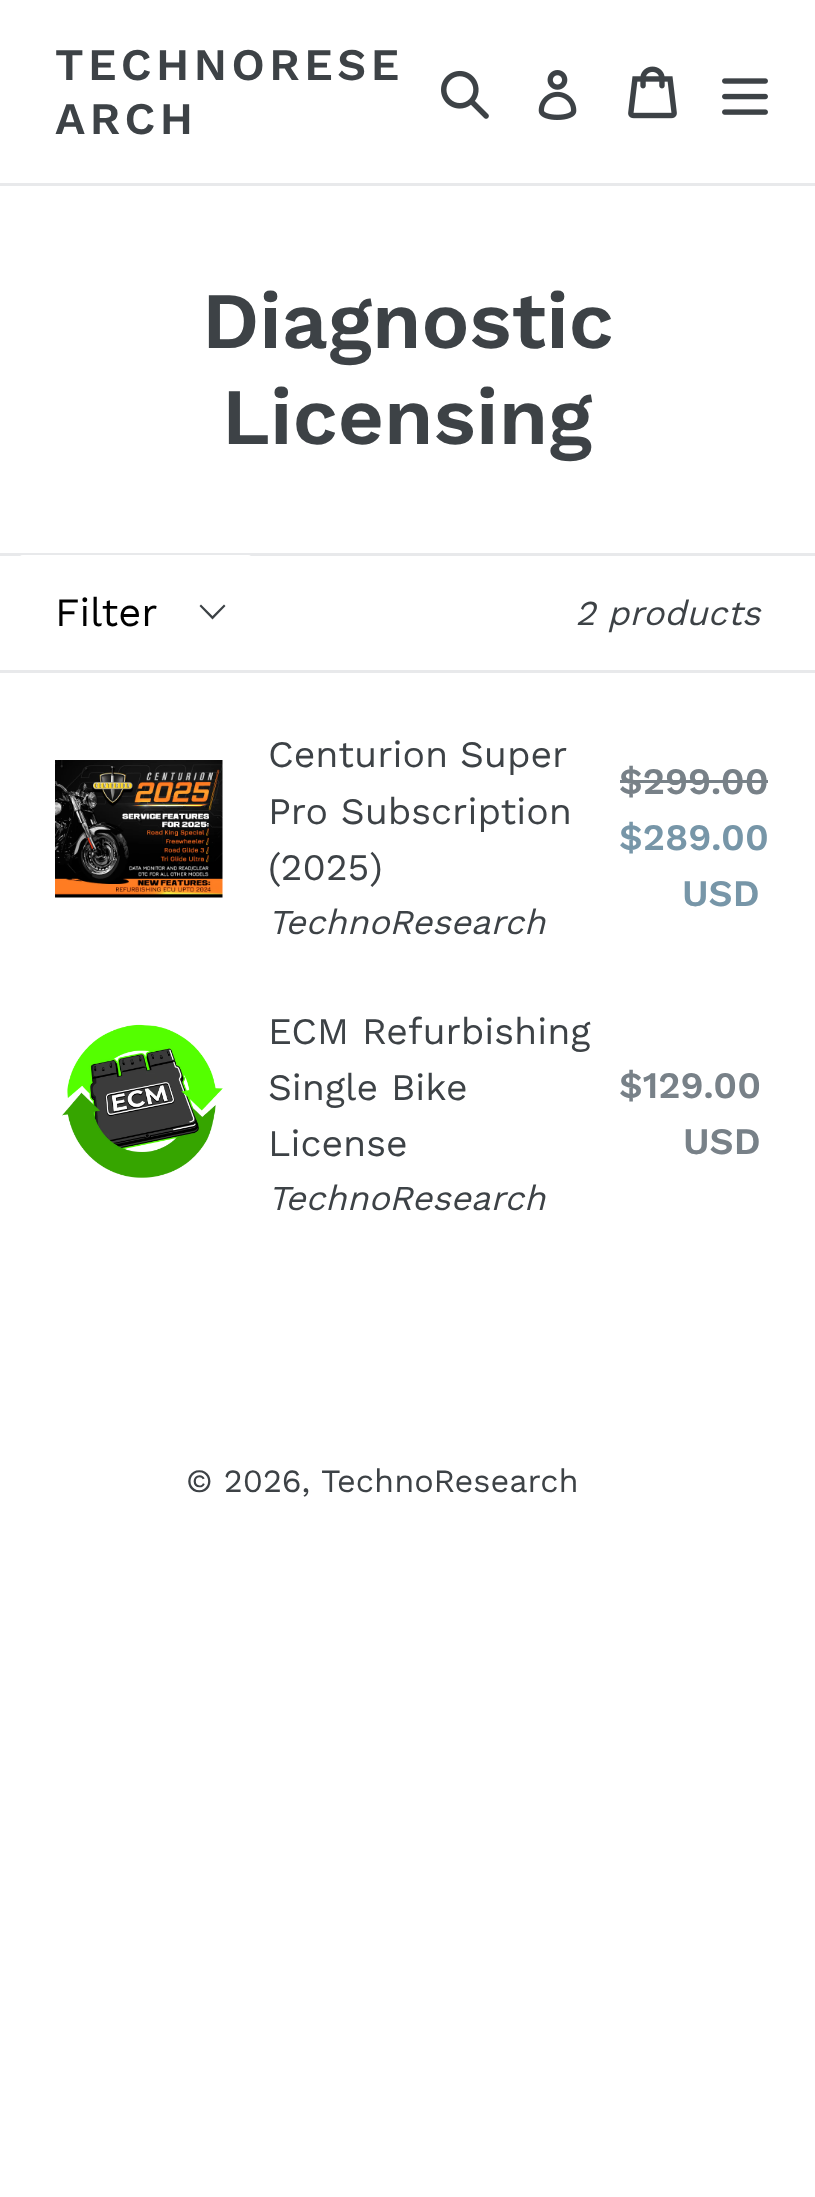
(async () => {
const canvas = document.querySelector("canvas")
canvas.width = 815
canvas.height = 2197
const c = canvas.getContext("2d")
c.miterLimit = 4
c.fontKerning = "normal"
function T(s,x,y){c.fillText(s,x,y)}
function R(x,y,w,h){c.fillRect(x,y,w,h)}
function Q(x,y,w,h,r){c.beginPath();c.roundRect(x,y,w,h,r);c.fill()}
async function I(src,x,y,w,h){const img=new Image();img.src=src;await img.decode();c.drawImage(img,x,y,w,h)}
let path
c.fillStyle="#fff"
R(0,0,815,2197)
c.fillStyle="#e8e9eb"
R(0,183,815,3)
c.letterSpacing="4.5px"
c.font="600 45px Work Sans"
c.fillStyle="#3d4246"
T("TECHNORESE",55,80)
T("ARCH",55,134)
await I("1.png",441,70,48,49)
await I("2.png",538,70,39,50)
await I("3.png",628,66,49,53)
await I("4.png",722,78,46,37)
c.letterSpacing="0px"
c.font="600 80px Work Sans"
T("Diagnostic",202,348)
T("Licensing",222,444)
c.fillStyle="#e8e9eb"
R(0,553,815,3)
R(0,670,815,3)
c.fillStyle="#fff"
Q(18,555,235,115,5)
c.fillStyle="#3d4246"
path = new Path2D("M212.5 619.5l-13-13.5l1.5-1.5l11.5 11.5l11.5-11.5l1.5 1.5z")
c.fill(path)
c.font="40px Work Sans"
c.fillStyle="#000"
T("Filter",55,626)
c.font="italic 35px Work Sans"
c.fillStyle="#3d4246"
T("2 products",575,625)
await I("5.png",55,760,168,138)
c.wordSpacing="-1px"
c.font="37.5px Work Sans"
T("Centurion Super",268,767)
c.wordSpacing="0px"
T("Pro Subscription",268,824)
T("(2025)",268,880)
c.font="italic 35px Work Sans"
T("TechnoResearch",268,934)
c.font="600 37.5px Work Sans"
c.fillStyle="#788188"
T("$299.00",619,794)
R(620,780,148,3)
c.fillStyle="#7796a8"
T("$289.00",619,850)
T("USD",682,906)
await I("6.png",62,1024,161,154)
c.font="37.5px Work Sans"
c.fillStyle="#3d4246"
T("ECM Refurbishing",268,1044)
T("Single Bike",268,1100)
T("License",268,1156)
c.font="italic 35px Work Sans"
T("TechnoResearch",268,1210)
c.font="600 37.5px Work Sans"
c.fillStyle="#788188"
T("$129.00",619,1098)
T("USD",683,1154)
c.font="32.5px Work Sans"
c.fillStyle="#3d4246"
T("© 2026,",186,1492)
T("TechnoResearch",321,1492)
})()
